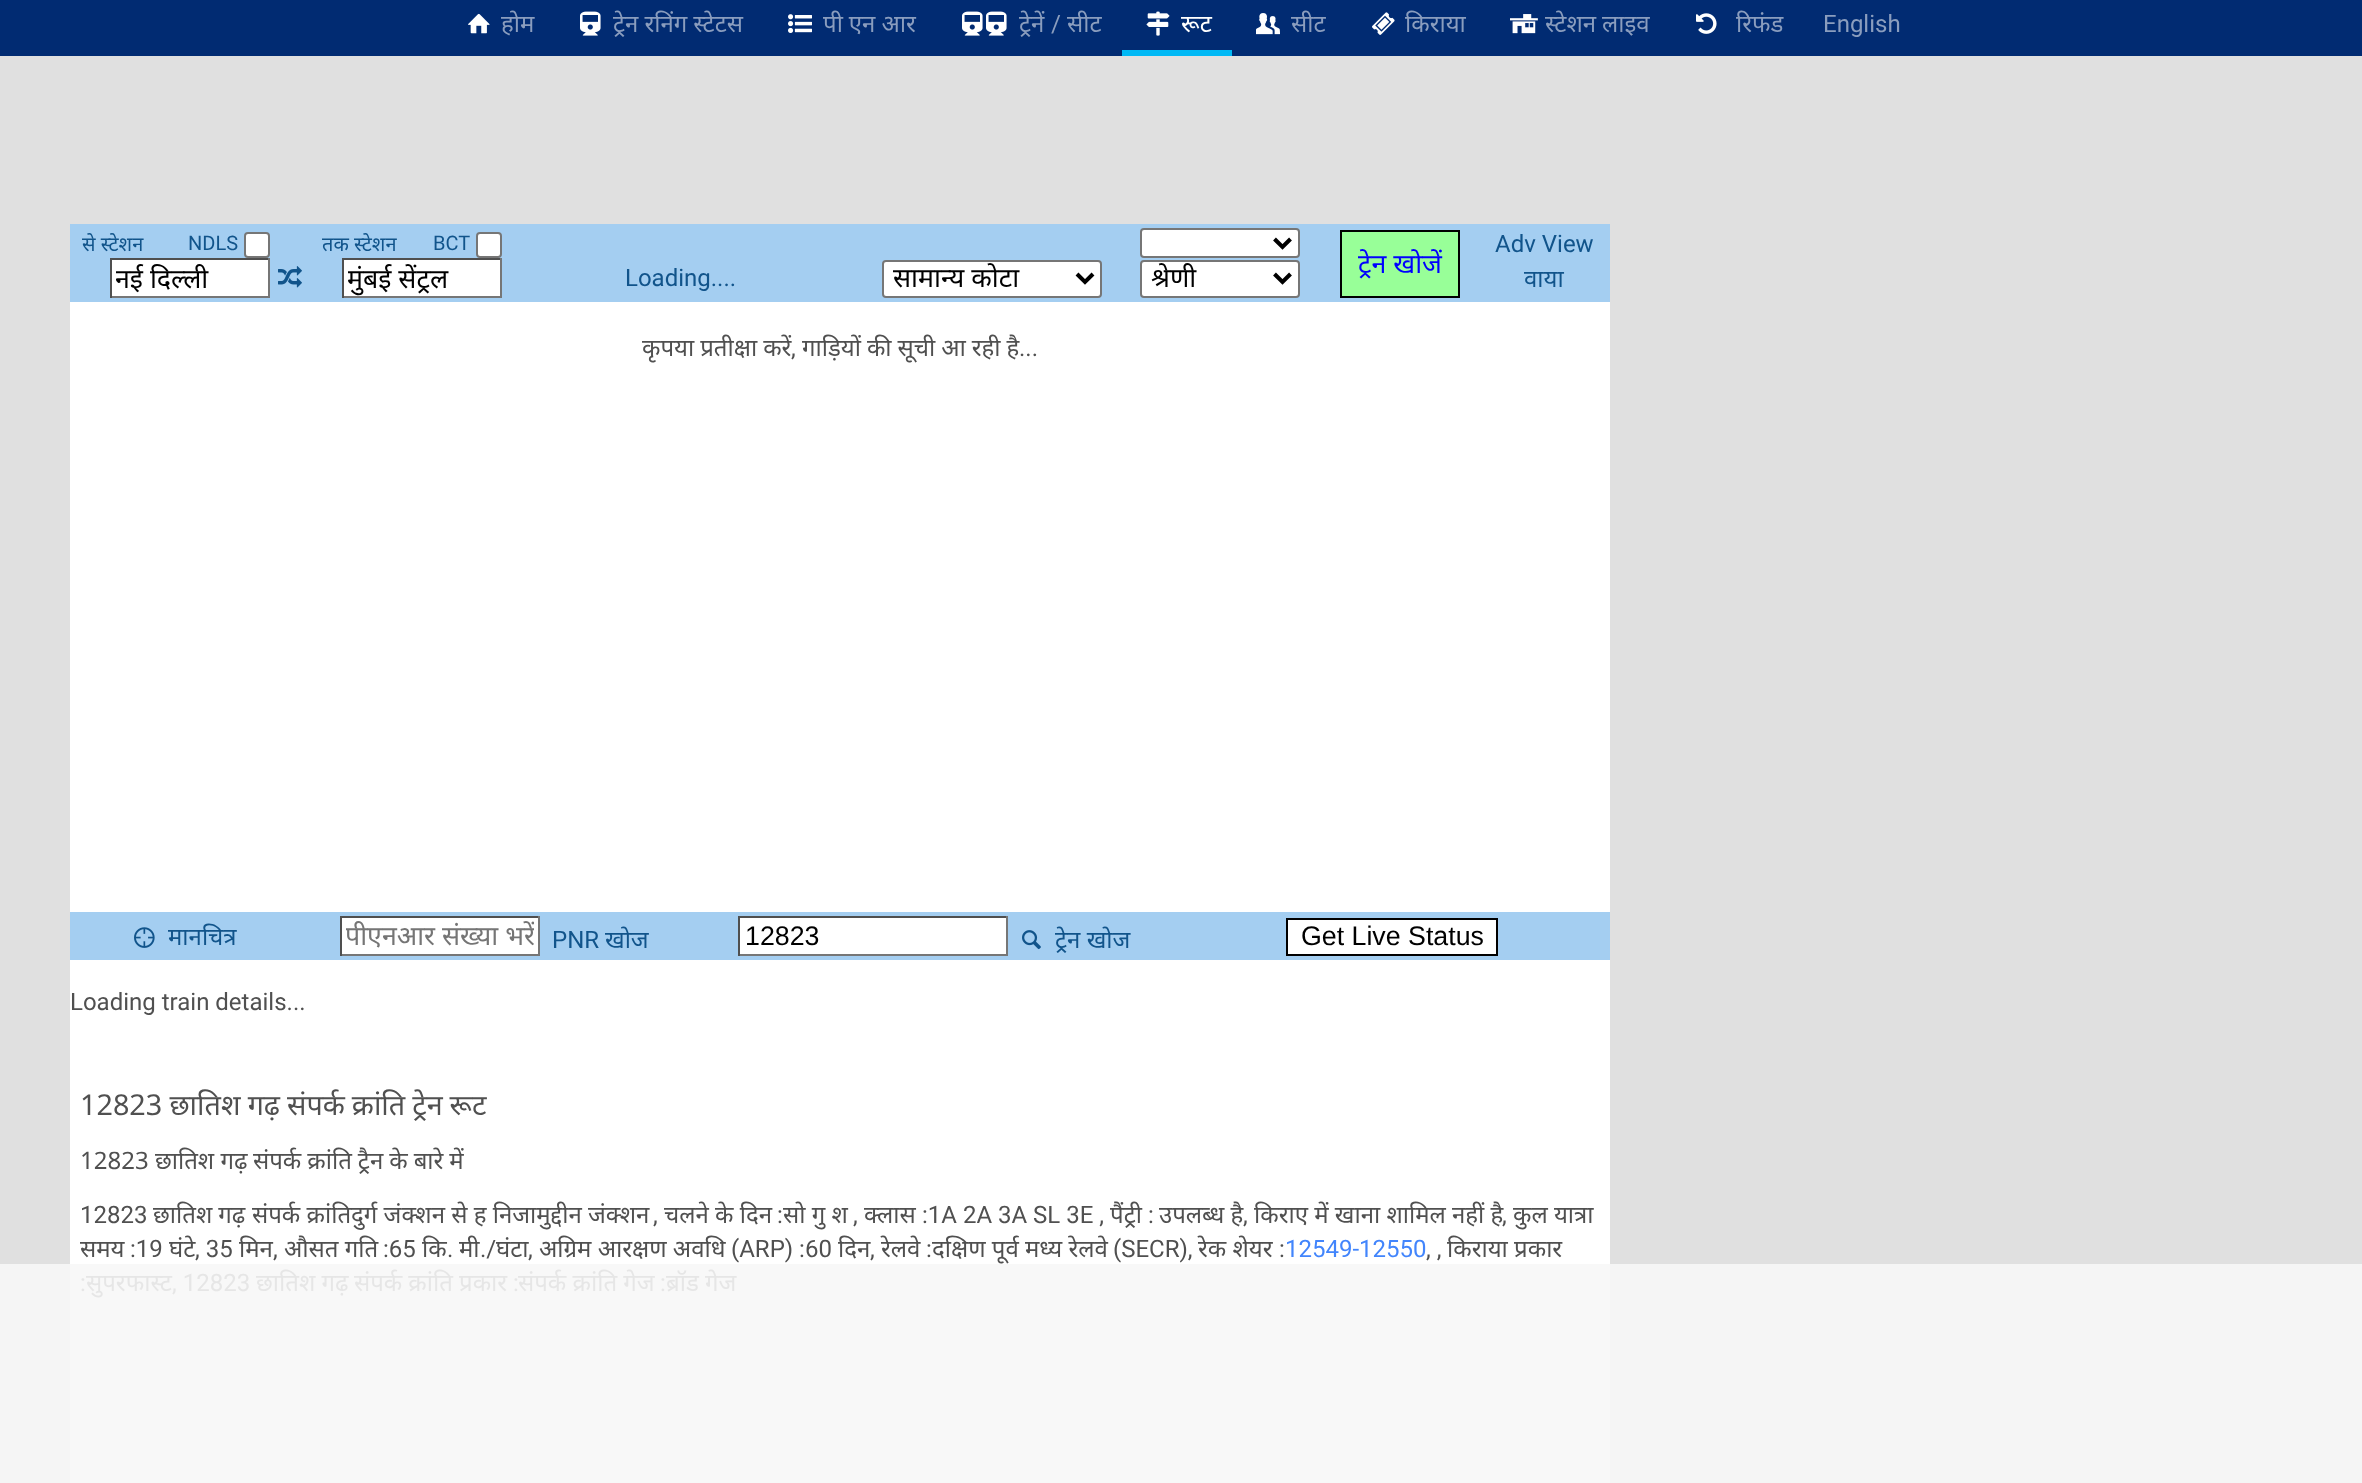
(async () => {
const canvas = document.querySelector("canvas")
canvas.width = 2362
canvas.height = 1483
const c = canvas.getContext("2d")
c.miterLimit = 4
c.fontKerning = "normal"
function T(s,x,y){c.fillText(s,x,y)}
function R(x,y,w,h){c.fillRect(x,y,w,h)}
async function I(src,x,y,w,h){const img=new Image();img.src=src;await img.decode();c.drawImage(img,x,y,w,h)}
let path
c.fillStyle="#e0e0e0"
R(0,0,2362,1483)
c.fillStyle="#f5f5f5"
R(0,1264,2362,219)
c.fillStyle="#012b72"
R(0,0,2362,56)
await I("1.png",468,13,22,21)
c.font="24px Noto Sans"
c.fillStyle="#8a9dbe"
T("होम",501,32)
await I("2.png",580,11,21,25)
c.wordSpacing="-0.25px"
T("ट्रेन रनिंग स्टेटस",613,32)
await I("3.png",788,14,24,19)
T("पी एन आर",823,32)
await I("2.png",962,11,21,25)
await I("2.png",986,11,21,25)
c.wordSpacing="0px"
T("ट्रेनें",1019,32)
c.font="24px Roboto"
T("/",1051,32)
c.font="24px Noto Sans"
T("सीट",1067,32)
c.fillStyle="#00b9f5"
R(1122,50,110,6)
await I("4.png",1146,11,24,25)
c.fillStyle="#fff"
T("रूट",1181,32)
await I("5.png",1256,13,24,22)
c.fillStyle="#8a9dbe"
T("सीट",1291,32)
await I("6.png",1372,12,23,23)
T("किराया",1405,32)
await I("7.png",1510,14,28,20)
c.wordSpacing="-0.25px"
T("स्टेशन लाइव",1545,32)
await I("8.png",1696,13,21,21)
c.wordSpacing="0px"
T("रिफंड",1736,32)
c.font="24px Roboto"
T("English",1823,32)
c.fillStyle="#fff"
R(70,302,1540,962)
c.fillStyle="#f8f8f8"
R(70,1264,1540,219)
c.fillStyle="#a4cef1"
R(70,224,1540,78)
c.font="20px Noto Sans"
c.fillStyle="#11548b"
T("से स्टेशन",82,251)
c.font="20px Roboto"
T("NDLS",188,250)
c.fillStyle="#fff"
c.beginPath()
c.roundRect(245,233,24,24,3)
c.fill()
c.strokeStyle="#767676"
c.lineWidth=2
c.stroke()
c.font="20px Noto Sans"
c.fillStyle="#11548b"
T("तक स्टेशन",322,251)
c.font="20px Roboto"
T("BCT",433,250)
c.fillStyle="#fff"
c.beginPath()
c.roundRect(477,233,24,24,3)
c.fill()
c.stroke()
c.beginPath()
c.roundRect(1141,229,158,28,3)
c.fill()
c.stroke()
path = new Path2D("M1274.5 239l8 8l8-8")
c.strokeStyle="#000"
c.lineWidth=4
c.stroke(path)
c.font="24px Roboto"
c.fillStyle="#11548b"
T("Adv View",1495,252)
c.fillStyle="#98ff98"
c.beginPath()
c.rect(1341,231,118,66)
c.fill()
c.lineWidth=2
c.stroke()
c.font="26.75px Noto Sans"
c.fillStyle="#00f"
T("ट्रेन खोजें",1358,273)
c.fillStyle="#fff"
R(112,260,156,36)
c.fillStyle="#4f4f4f"
R(110,258,160,2)
c.fillStyle="#767676"
R(268,258,2,40)
R(110,296,160,2)
c.fillStyle="#4f4f4f"
R(110,258,2,40)
c.save()
c.beginPath()
c.rect(116,260,148,36)
c.clip()
c.fillStyle="#000"
T("नई दिल्ली",115,288)
c.restore()
await I("9.png",278,266,24,22)
c.fillStyle="#fff"
R(344,260,156,36)
c.fillStyle="#4f4f4f"
R(342,258,160,2)
c.fillStyle="#767676"
R(500,258,2,40)
R(342,296,160,2)
c.fillStyle="#4f4f4f"
R(342,258,2,40)
c.save()
c.beginPath()
c.rect(348,260,148,36)
c.clip()
c.fillStyle="#000"
T("मुंबई सेंट्रल",347,288)
c.restore()
c.font="24px Roboto"
c.fillStyle="#11548b"
T("Loading....",625,286)
c.fillStyle="#fff"
c.beginPath()
c.roundRect(883,261,218,36,3)
c.fill()
c.strokeStyle="#767676"
c.stroke()
path = new Path2D("M1077 274l8 8l8-8")
c.strokeStyle="#000"
c.lineWidth=4
c.stroke(path)
c.font="26.75px Noto Sans"
c.fillStyle="#000"
T("सामान्य कोटा",893,287)
c.fillStyle="#fff"
c.beginPath()
c.roundRect(1141,261,158,36,3)
c.fill()
c.strokeStyle="#767676"
c.lineWidth=2
c.stroke()
path = new Path2D("M1274.5 274l8 8l8-8")
c.strokeStyle="#000"
c.lineWidth=4
c.stroke(path)
c.save()
c.beginPath()
c.rect(1150,262,116,34)
c.clip()
c.fillStyle="#000"
T("श्रेणी",1151,287)
c.restore()
c.font="24px Noto Sans"
c.fillStyle="#11548b"
T("वाया",1524,287)
c.wordSpacing="-0.25px"
c.fillStyle="#505050"
T("कृपया प्रतीक्षा करें",642,356)
c.wordSpacing="0px"
c.font="24px Roboto"
T(",",791,356)
c.wordSpacing="-0.25px"
c.font="24px Noto Sans"
T("गाड़ियों की सूची आ रही है",802,356)
c.wordSpacing="0px"
c.font="24px Roboto"
T("...",1019,356)
c.fillStyle="#a4cef1"
R(70,912,1540,48)
await I("10.png",134,927,21,21)
c.font="24px Noto Sans"
c.fillStyle="#11548b"
T("मानचित्र",168,945)
c.fillStyle="#fff"
R(342,918,196,36)
c.fillStyle="#4f4f4f"
R(340,916,200,2)
c.fillStyle="#767676"
R(538,916,2,40)
R(340,954,200,2)
c.fillStyle="#4f4f4f"
R(340,916,2,40)
c.save()
c.beginPath()
c.rect(346,918,188,36)
c.clip()
c.font="26.75px Noto Sans"
c.fillStyle="#757575"
T("पीएनआर संख्या भरें",345,945)
c.restore()
c.font="24px Roboto"
c.fillStyle="#11548b"
T("PNR",552,948)
c.font="24px Noto Sans"
T("खोज",605,948)
c.fillStyle="#fff"
R(740,918,266,36)
c.fillStyle="#4f4f4f"
R(738,916,270,2)
c.fillStyle="#767676"
R(1006,916,2,40)
R(738,954,270,2)
c.fillStyle="#4f4f4f"
R(738,916,2,40)
c.font="26.75px Liberation Sans"
c.fillStyle="#000"
T("12823",745,945)
await I("11.png",1022,930,19,20)
c.font="24px Noto Sans"
c.fillStyle="#11548b"
T("ट्रेन खोज",1055,948)
c.fillStyle="#fff"
c.beginPath()
c.rect(1287,919,210,36)
c.fill()
c.lineWidth=2
c.stroke()
c.font="26.75px Liberation Sans"
c.fillStyle="#000"
T("Get Live Status",1301,945)
c.font="24px Roboto"
c.fillStyle="#505050"
T("Loading train details...",70,1010)
c.wordSpacing="-0.25px"
c.font="28.75px Noto Sans"
T("12823 छातिश गढ़",80,1115)
c.wordSpacing="-0.5px"
T("संपर्क क्रांति ट्रेन रूट",287,1115)
c.wordSpacing="0px"
c.font="24px Noto Sans"
T("12823 छातिश गढ़",80,1169)
c.wordSpacing="-0.25px"
T("संपर्क क्रांति ट्रैन के बारे में",253,1169)
c.wordSpacing="0px"
c.font="24px Roboto"
T("12823",80,1223)
c.wordSpacing="-0.25px"
c.font="24px Noto Sans"
T("छातिश गढ़",153,1223)
c.wordSpacing="0px"
T("संपर्क क्रांतिदुर्ग जंक्शन से ह निजामुद्दीन जंक्शन",252,1223)
T("चलने के दिन",664,1223)
c.font="24px Roboto"
T(":",777,1223)
c.font="24px Noto Sans"
T("सो गु श",783,1223)
T("क्लास",864,1223)
c.font="24px Roboto"
T(":1A 2A 3A SL 3E ,",922,1223)
c.font="24px Noto Sans"
T("पैंट्री",1110,1223)
T("उपलब्ध है",1159,1223)
T("किराए में खाना शामिल नहीं है",1254,1223)
c.font="24px Roboto"
T(",",1502,1223)
c.font="24px Noto Sans"
T("कुल यात्रा",1513,1223)
c.font="24px Roboto"
T(",",653,1223)
T(",",853,1223)
T(":",1148,1223)
T(",",1243,1223)
c.font="24px Noto Sans"
T("समय",80,1257)
c.font="24px Roboto"
T(":19",130,1257)
c.font="24px Noto Sans"
T("घंटे",169,1257)
c.font="24px Roboto"
T(", 35",195,1257)
c.font="24px Noto Sans"
T("मिन",239,1257)
c.font="24px Roboto"
T(",",273,1257)
c.font="24px Noto Sans"
T("औसत गति",284,1257)
c.font="24px Roboto"
T(":65",383,1257)
c.font="24px Noto Sans"
T("कि",422,1257)
c.font="24px Roboto"
T(".",447,1257)
c.font="24px Noto Sans"
T("मी",459,1257)
c.font="24px Roboto"
T("./",480,1257)
c.font="24px Noto Sans"
T("घंटा",496,1257)
c.font="24px Roboto"
T(",",528,1257)
c.font="24px Noto Sans"
T("अग्रिम आरक्षण अवधि",539,1257)
c.font="24px Roboto"
T("(ARP) :60",731,1257)
c.font="24px Noto Sans"
T("दिन",838,1257)
c.font="24px Roboto"
T(",",870,1257)
c.font="24px Noto Sans"
T("रेलवे",881,1257)
c.font="24px Roboto"
T(":",926,1257)
c.font="24px Noto Sans"
T("दक्षिण पूर्व मध्य रेलवे",932,1257)
c.font="24px Roboto"
T("(SECR),",1113,1257)
c.font="24px Noto Sans"
T("रेक शेयर",1198,1257)
c.font="24px Roboto"
T(":",1279,1257)
c.fillStyle="#4285fc"
T("12549-12550",1285,1257)
c.font="24px Noto Sans"
c.fillStyle="#505050"
T("किराया प्रकार",1447,1257)
c.font="24px Roboto"
T(", ,",1426,1257)
c.fillStyle="#e6e6e6"
T(":",80,1291)
c.font="24px Noto Sans"
T("सुपरफास्ट",86,1291)
c.font="24px Roboto"
T(", 12823",172,1291)
c.font="24px Noto Sans"
T("छातिश गढ़",256,1291)
c.wordSpacing="-0.25px"
T("संपर्क क्रांति",354,1291)
c.wordSpacing="0px"
T("प्रकार",459,1291)
c.font="24px Roboto"
T(":",513,1291)
c.font="24px Noto Sans"
T("संपर्क क्रांति गेज",518,1291)
c.font="24px Roboto"
T(":",660,1291)
c.font="24px Noto Sans"
T("ब्रॉड गेज",666,1291)
})()
